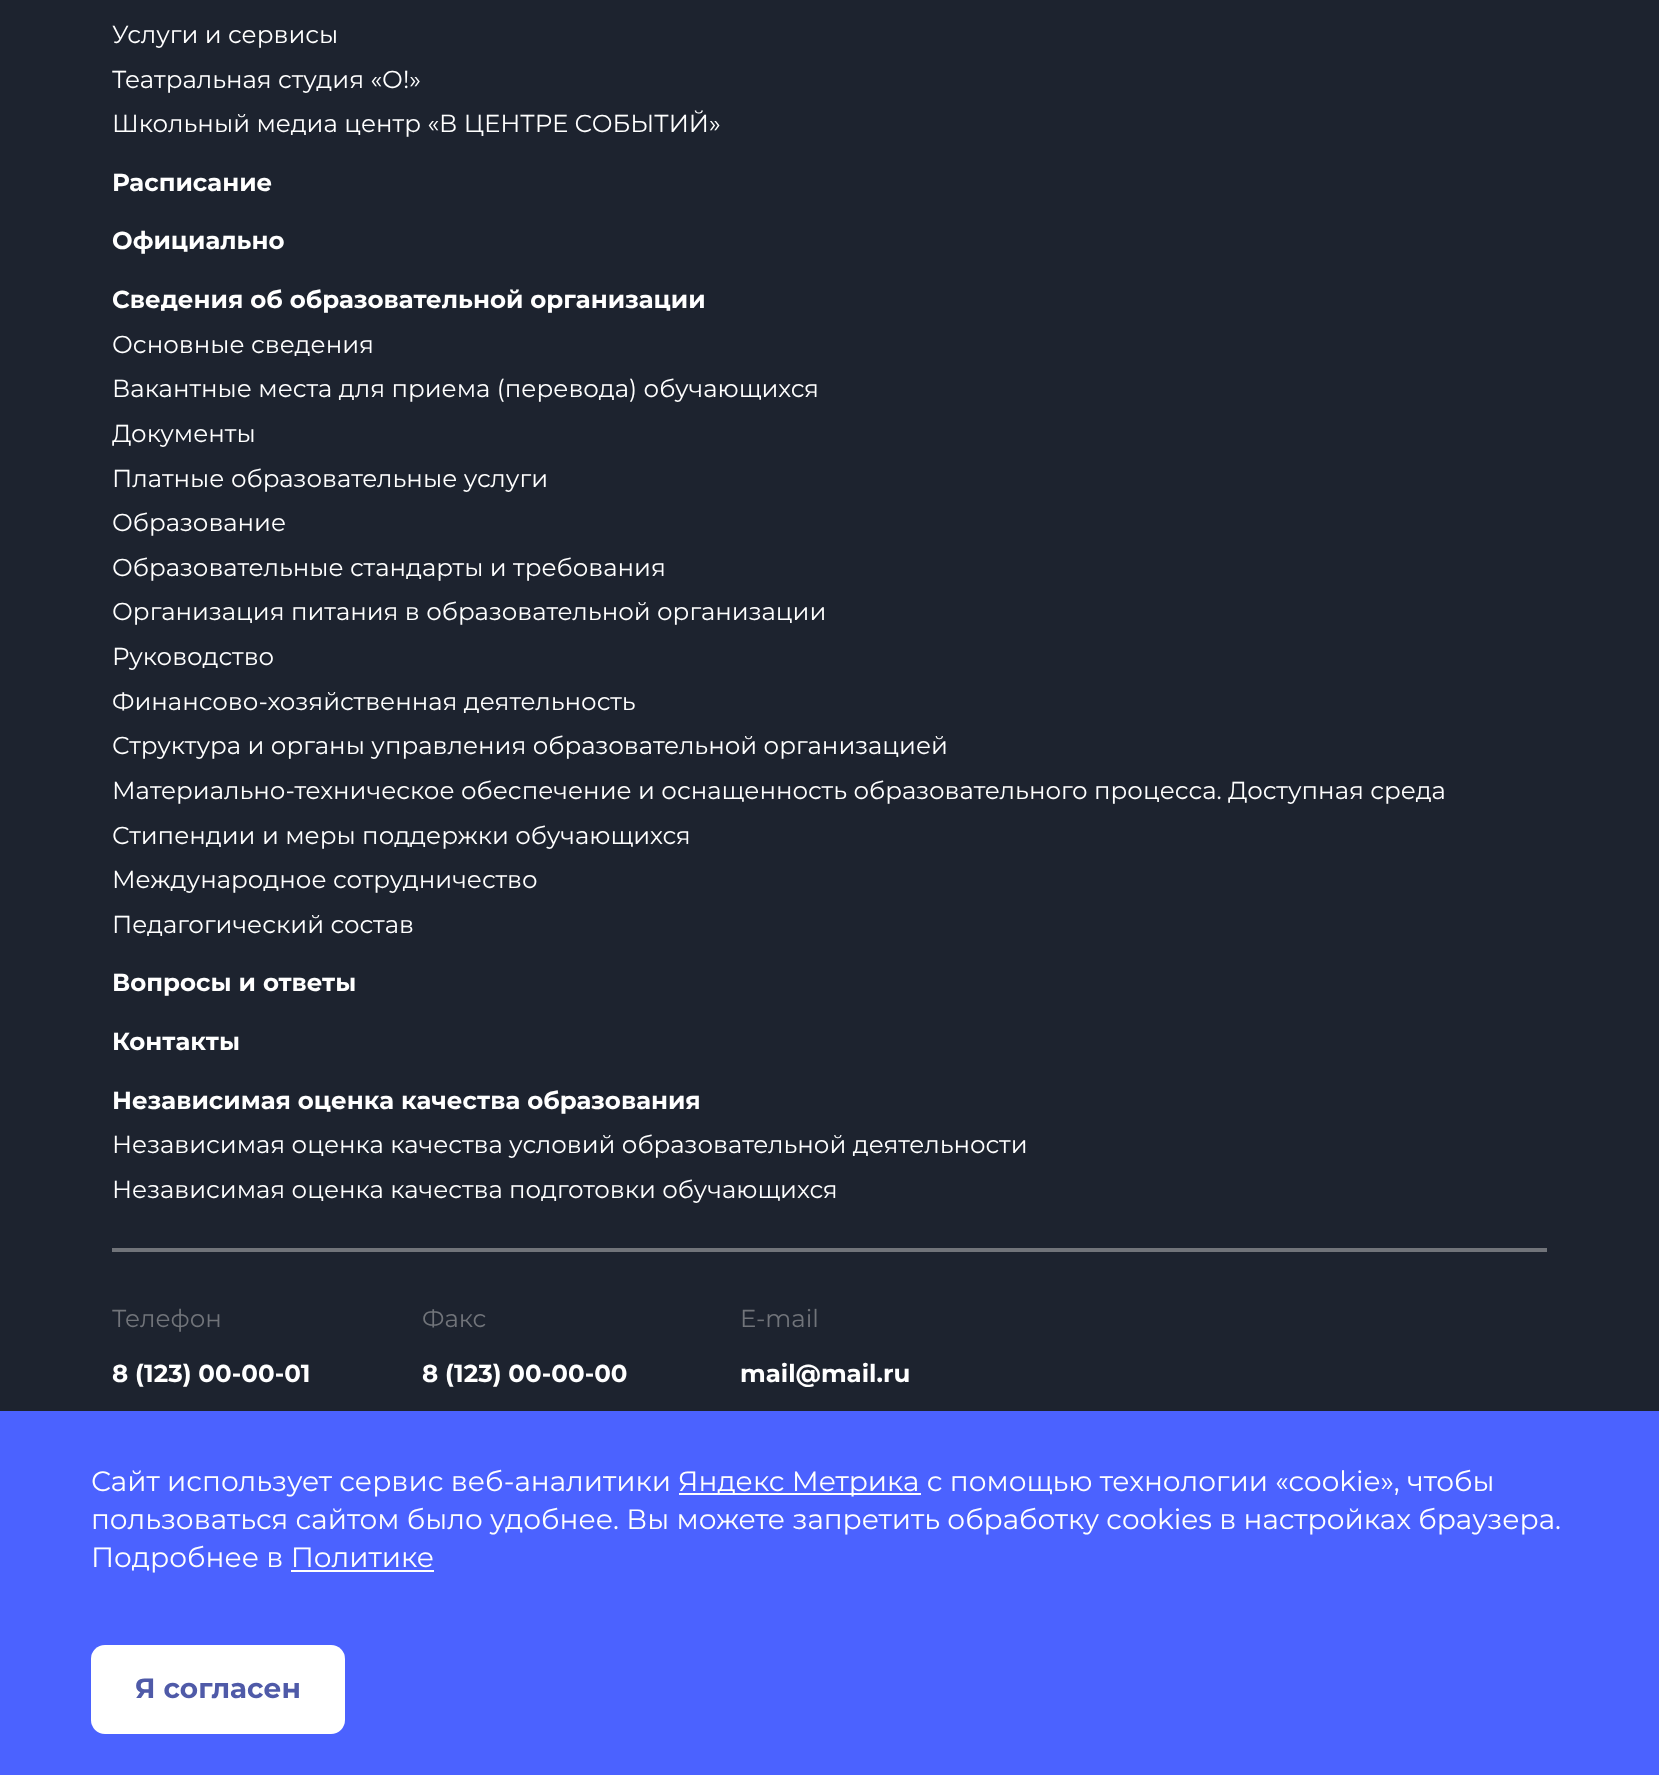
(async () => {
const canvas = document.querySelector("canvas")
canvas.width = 1659
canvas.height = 1775
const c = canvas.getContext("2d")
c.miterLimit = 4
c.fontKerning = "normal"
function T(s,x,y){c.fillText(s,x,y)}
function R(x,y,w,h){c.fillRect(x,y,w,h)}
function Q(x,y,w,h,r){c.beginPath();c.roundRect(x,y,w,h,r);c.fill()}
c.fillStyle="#1d232f"
R(0,0,1659,1775)
c.font="24.5px Montserrat"
c.fillStyle="#fff"
T("Услуги и сервисы",112,43)
T("Театральная студия «О!»",112,88)
T("Школьный медиа центр «В ЦЕНТРЕ СОБЫТИЙ»",112,132)
c.font="bold 24.5px Montserrat"
T("Расписание",112,191)
T("Официально",112,249)
T("Сведения об образовательной организации",112,308)
c.font="24.5px Montserrat"
T("Основные сведения",112,353)
T("Вакантные места для приема (перевода) обучающихся",112,397)
T("Документы",112,442)
T("Платные образовательные услуги",112,487)
T("Образование",112,531)
T("Образовательные стандарты и требования",112,576)
T("Организация питания в образовательной организации",112,620)
T("Руководство",112,665)
T("Финансово-хозяйственная деятельность",112,710)
T("Структура и органы управления образовательной организацией",112,754)
T("Материально-техническое обеспечение и оснащенность образовательного процесса. Доступная среда",112,799)
T("Стипендии и меры поддержки обучающихся",112,844)
T("Международное сотрудничество",112,888)
T("Педагогический состав",112,933)
c.font="bold 24.5px Montserrat"
T("Вопросы и ответы",112,991)
T("Контакты",112,1050)
T("Независимая оценка качества образования",112,1109)
c.font="24.5px Montserrat"
T("Независимая оценка качества условий образовательной деятельности",112,1153)
T("Независимая оценка качества подготовки обучающихся",112,1198)
c.fillStyle="#71747a"
R(112,1248,1435,4)
T("Телефон",112,1327)
c.font="bold 24.5px Montserrat"
c.fillStyle="#fff"
T("8 (123) 00-00-01",112,1382)
c.font="24.5px Montserrat"
c.fillStyle="#71747a"
T("Факс",422,1327)
c.font="bold 24.5px Montserrat"
c.fillStyle="#fff"
T("8 (123) 00-00-00",422,1382)
c.font="24.5px Montserrat"
c.fillStyle="#71747a"
T("E-mail",740,1327)
c.font="bold 24.5px Montserrat"
c.fillStyle="#fff"
T("mail@mail.ru",740,1382)
c.fillStyle="#4b62ff"
R(0,1411,1659,364)
c.font="28px Montserrat"
c.fillStyle="#fff"
T("Сайт использует сервис веб-аналитики",91,1491)
R(679,1493,242,2)
T("Яндекс Метрика с помощью технологии «cookie», чтобы",678,1491)
T("пользоваться сайтом было удобнее. Вы можете запретить обработку cookies в настройках браузера.",91,1529)
T("Подробнее в Политике",91,1567)
R(291,1570,143,2)
Q(91,1645,254,89,14)
c.font="bold 28px Montserrat"
c.fillStyle="#4f5aa8"
T("Я согласен",135,1698)
})()
